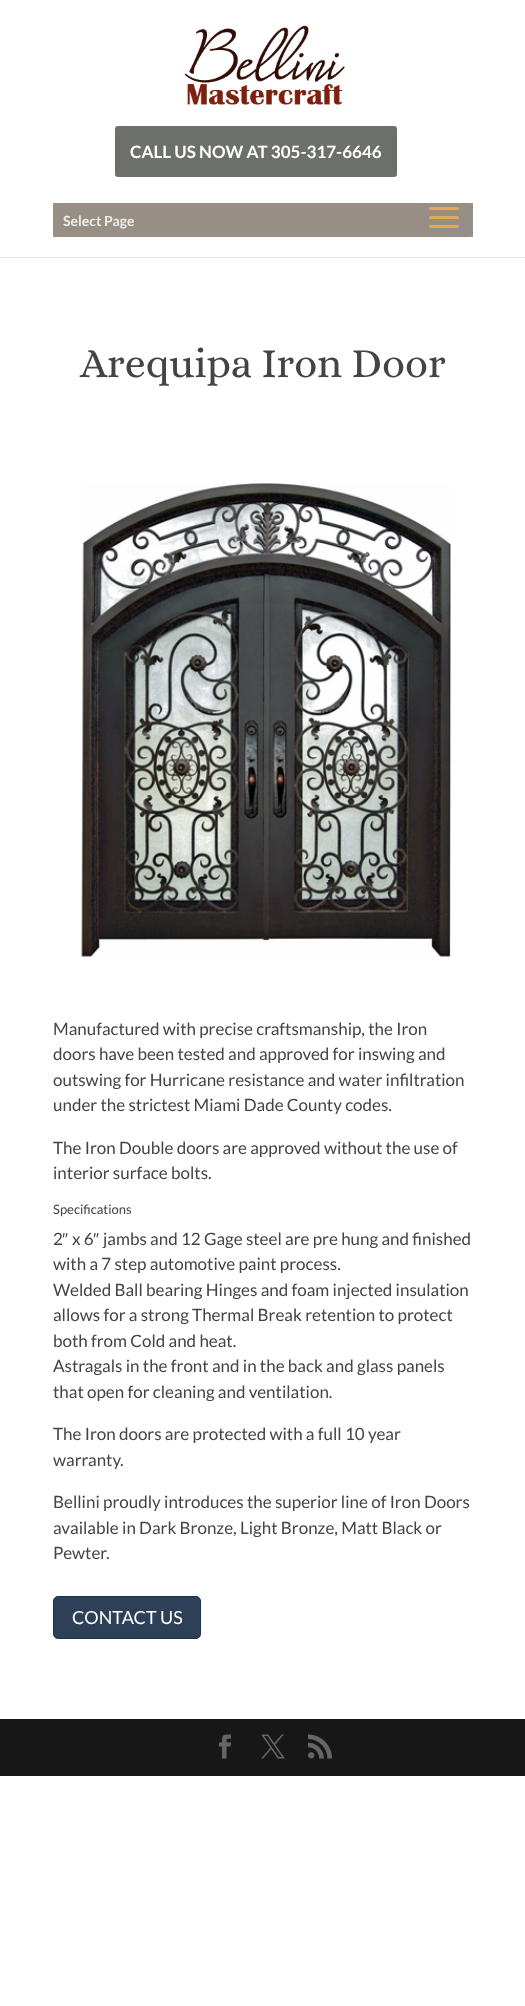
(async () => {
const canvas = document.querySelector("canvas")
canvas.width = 525
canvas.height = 2006
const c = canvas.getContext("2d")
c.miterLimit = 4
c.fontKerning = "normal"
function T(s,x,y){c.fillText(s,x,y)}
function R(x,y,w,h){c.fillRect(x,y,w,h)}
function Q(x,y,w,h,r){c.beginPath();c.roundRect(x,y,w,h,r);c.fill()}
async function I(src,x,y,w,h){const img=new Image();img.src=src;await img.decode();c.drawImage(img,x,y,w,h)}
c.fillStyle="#fff"
R(0,0,525,2006)
c.fillStyle="#e6e6e6"
R(0,257,525,1)
await I("1.png",184,25,161,80)
c.fillStyle="#6c706c"
Q(115,126,282,51,3)
c.font="bold 17px Lato"
c.fillStyle="#fff"
T("CALL US NOW AT 305-317-6646",130,158)
c.fillStyle="#9f978c"
R(53,203,420,34)
c.fillStyle="#978f85"
Q(53,203,420,34,5)
c.font="bold 14px Lato"
c.fillStyle="#eeedeb"
T("Select Page",63,226)
await I("2.png",429,207,30,21)
c.font="42px Alice"
c.fillStyle="#444"
T("Arequipa Iron Door",80,377)
await I("3.png",81,483,371,475)
c.font="17px Lato"
T("Manufactured with precise craftsmanship, the Iron",53,1035)
T("doors have been tested and approved for inswing and",53,1060)
T("outswing for Hurricane resistance and water infiltration",53,1086)
T("under the strictest Miami Dade County codes.",53,1111)
T("The Iron Double doors are approved without the use of",53,1154)
T("interior surface bolts.",53,1179)
c.font="13px Lato"
T("Specifications",53,1214)
c.font="17px Lato"
T("2",53,1245)
c.font="17px Liberation Sans"
T("″",62,1245)
c.font="17px Lato"
T("x 6",72,1245)
c.font="17px Liberation Sans"
T("″",93,1245)
c.font="17px Lato"
T("jambs and 12 Gage steel are pre hung and finished",103,1245)
T("with a 7 step automotive paint process.",53,1270)
T("Welded Ball bearing Hinges and foam injected insulation",53,1296)
T("allows for a strong Thermal Break retention to protect",53,1321)
T("both from Cold and heat.",53,1347)
T("Astragals in the front and in the back and glass panels",53,1372)
T("that open for cleaning and ventilation.",53,1398)
T("The Iron doors are protected with a full 10 year",53,1440)
T("warranty.",53,1466)
T("Bellini proudly introduces the superior line of Iron Doors",53,1508)
T("available in Dark Bronze, Light Bronze, Matt Black or",53,1534)
T("Pewter.",53,1559)
c.fillStyle="#2e4057"
c.beginPath()
c.roundRect(53.5,1596.5,147,42,4.5)
c.fill()
c.strokeStyle="#1c314b"
c.stroke()
c.font="18px Lato"
c.fillStyle="#fff"
T("CONTACT US",72,1624)
c.fillStyle="#171717"
R(0,1719,525,57)
await I("4.png",219,1734,12,25)
await I("5.png",261,1734,24,25)
await I("6.png",308,1734,24,25)
})()
